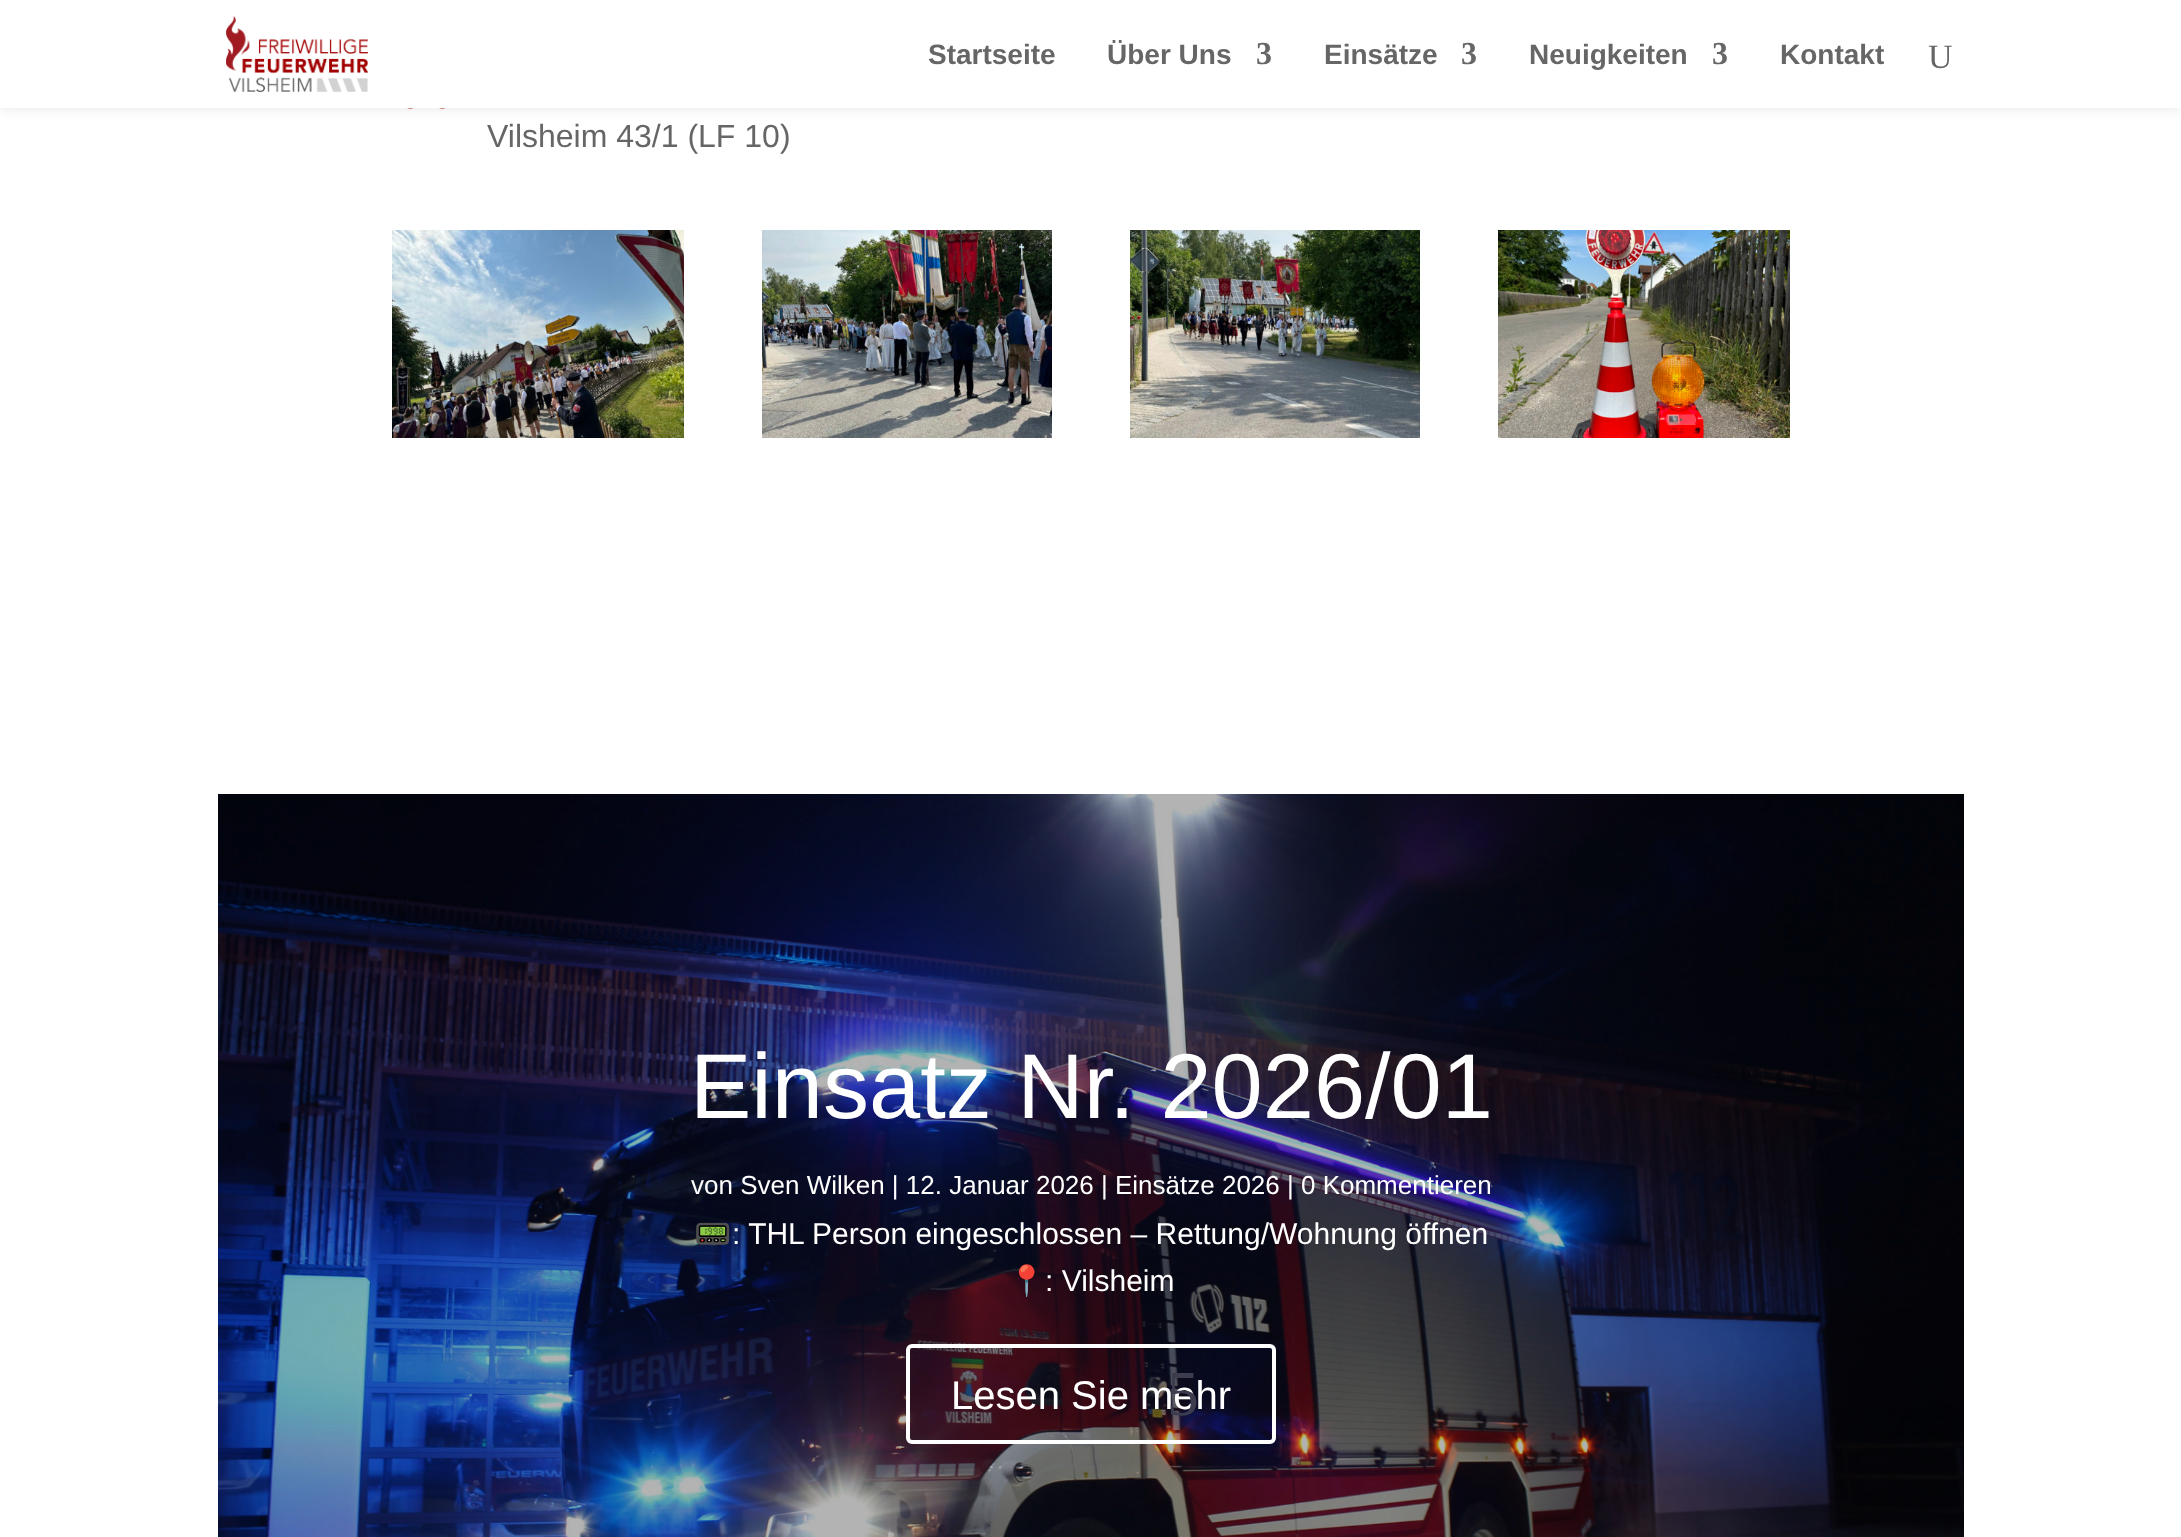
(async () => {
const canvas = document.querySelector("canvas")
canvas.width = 2181
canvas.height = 1537
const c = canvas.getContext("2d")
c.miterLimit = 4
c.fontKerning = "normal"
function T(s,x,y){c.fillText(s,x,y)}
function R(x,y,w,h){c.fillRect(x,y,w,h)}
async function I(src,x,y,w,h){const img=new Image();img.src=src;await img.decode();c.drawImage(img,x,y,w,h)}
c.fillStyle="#fff"
R(0,0,2181,1537)
await I("2.png",407,108,38,1)
c.fillStyle="#0000001a"
c.filter="blur(7px)"
c.beginPath()
c.rect(0,0,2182,108)
c.fill()
c.filter="none"
c.fillStyle="#fff"
R(0,0,2181,108)
await I("1.png",226,16,142,76)
c.font="bold 28px Liberation Sans"
c.fillStyle="#666"
T("Startseite",928,64)
T("Über Uns",1107,64)
c.font="bold 32px Liberation Serif"
T("3",1256,64)
c.font="bold 28px Liberation Sans"
T("Einsätze",1324,64)
c.font="bold 32px Liberation Serif"
T("3",1461,64)
c.font="bold 28px Liberation Sans"
T("Neuigkeiten",1529,64)
c.font="bold 32px Liberation Serif"
T("3",1712,64)
c.font="bold 28px Liberation Sans"
T("Kontakt",1780,64)
c.font="34px Liberation Serif"
T("U",1928,68)
c.font="32px Liberation Sans"
T("Vilsheim 43/1 (LF 10)",487,147)
await I("3.png",392,230,292,208)
await I("4.png",762,230,290,208)
await I("5.png",1130,230,290,208)
await I("6.png",1498,230,292,208)
await I("7.png",218,794,1746,743)
c.font="92px Liberation Sans"
c.fillStyle="#fff"
T("Einsatz Nr. 2026/01",690,1118)
c.font="26px Liberation Sans"
T("von Sven Wilken | 12. Januar 2026 | Einsätze 2026 | 0 Kommentieren",691,1194)
c.font="30px Noto Color Emoji"
T("📟",694,1244)
c.font="30px Liberation Sans"
T(": THL Person eingeschlossen – Rettung/Wohnung öffnen",732,1244)
c.font="30px Noto Color Emoji"
T("📍",1008,1291)
c.font="30px Liberation Sans"
T(": Vilsheim",1045,1291)
c.beginPath()
c.roundRect(908,1346,366,96,4)
c.strokeStyle="#fff"
c.lineWidth=4
c.stroke()
c.font="40px Liberation Sans"
T("Lesen Sie mehr",951,1409)
c.font="64px Liberation Serif"
c.fillStyle="#3c3c4e"
T("5",1167,1415)
})()
